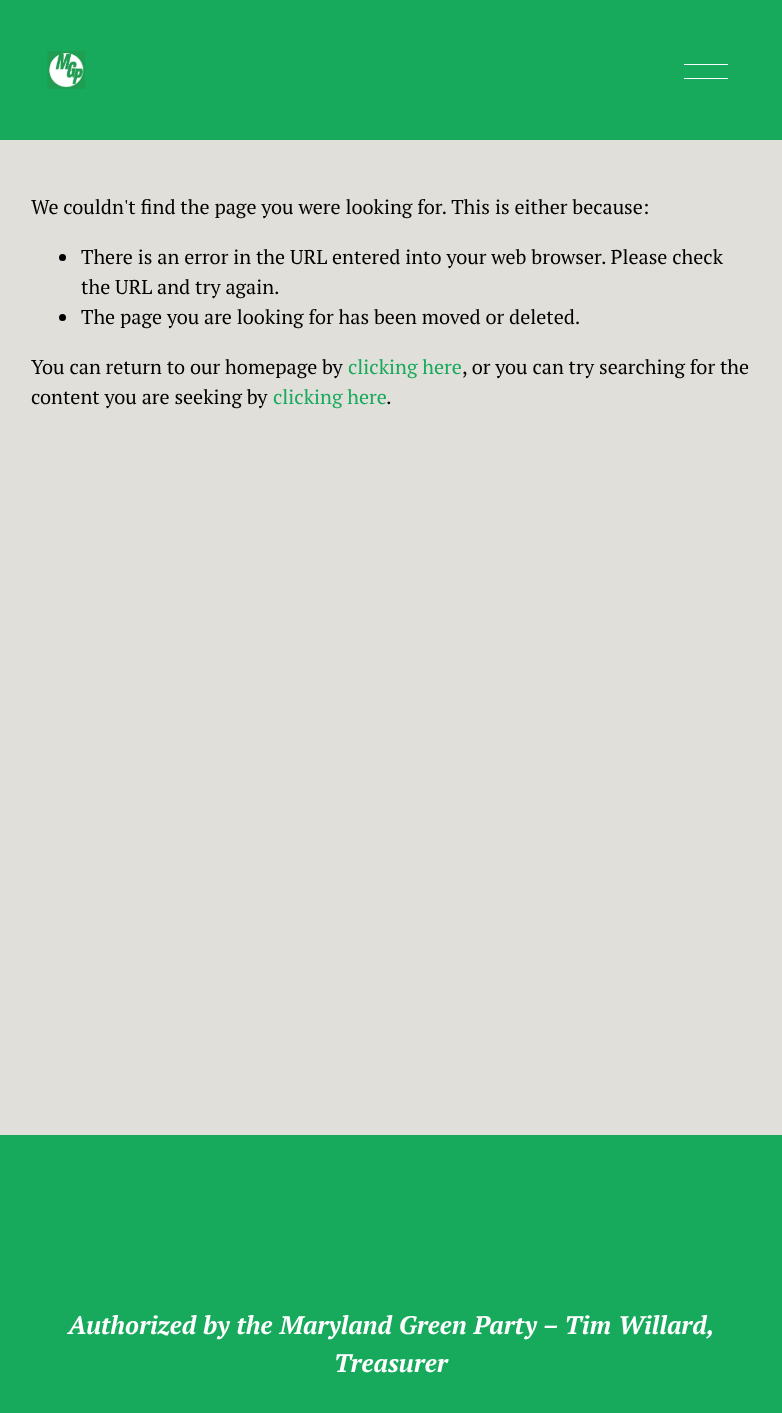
(async () => {
const canvas = document.querySelector("canvas")
canvas.width = 782
canvas.height = 1413
const c = canvas.getContext("2d")
c.miterLimit = 4
c.fontKerning = "normal"
function T(s,x,y){c.fillText(s,x,y)}
function R(x,y,w,h){c.fillRect(x,y,w,h)}
async function I(src,x,y,w,h){const img=new Image();img.src=src;await img.decode();c.drawImage(img,x,y,w,h)}
c.fillStyle="#e1dfd9"
R(0,0,782,1413)
c.fillStyle="#17aa5c"
R(0,0,782,140)
await I("1.png",47,51,38,38)
c.fillStyle="#fff"
R(684,64,44,1)
R(684,78,44,1)
c.font="20px PT Serif"
c.fillStyle="#000"
T("We couldn't find the page you were looking for. This is either because:",31,214)
c.beginPath()
c.arc(62.5,257.5,3.5,0,7)
c.fill()
T("There is an error in the URL entered into your web browser. Please check",81,264)
T("the URL and try again.",81,294)
c.beginPath()
c.arc(62.5,317.5,3.5,0,7)
c.fill()
T("The page you are looking for has been moved or deleted.",81,324)
T("You can return to our homepage by",31,374)
c.fillStyle="#17aa5c"
T("clicking here",348,374)
c.fillStyle="#000"
T(", or you can try searching for the",462,374)
T("content you are seeking by",31,404)
c.fillStyle="#17aa5c"
T("clicking here",273,404)
c.fillStyle="#000"
T(".",386,404)
c.fillStyle="#17aa5c"
R(0,1135,782,278)
c.font="italic bold 25.4px PT Serif"
c.fillStyle="#fff"
T("Authorized by the Maryland Green Party – Tim Willard,",68,1334)
T("Treasurer",334,1372)
})()
